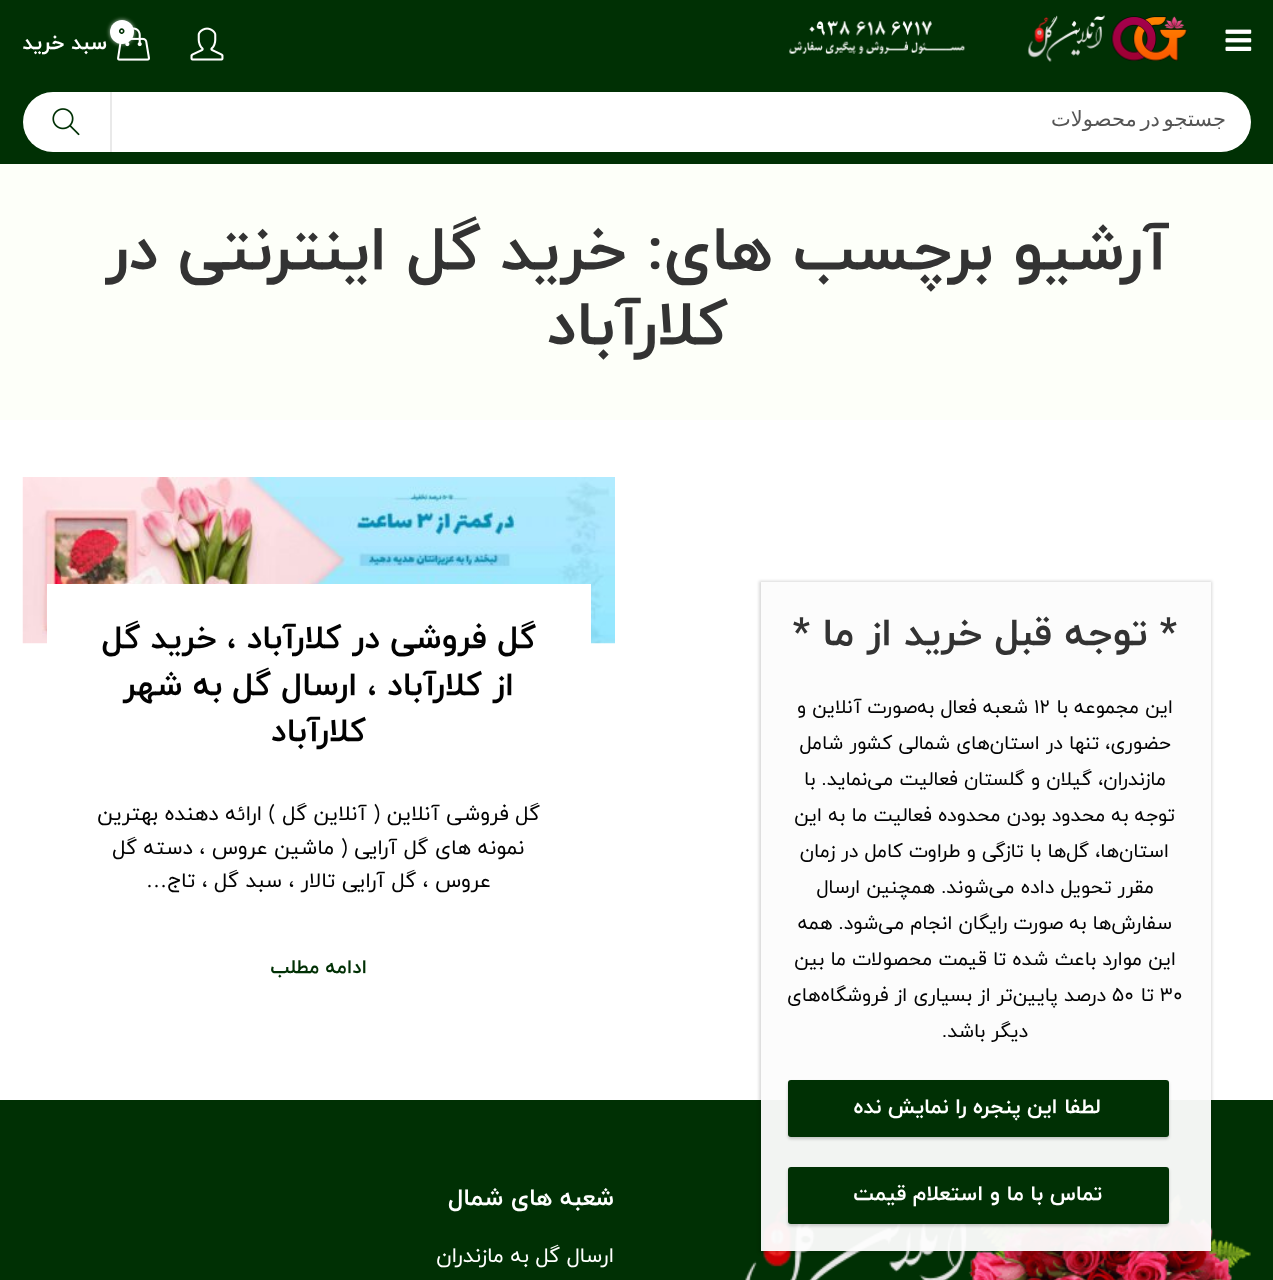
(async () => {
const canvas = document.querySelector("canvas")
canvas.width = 1273
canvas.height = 1280
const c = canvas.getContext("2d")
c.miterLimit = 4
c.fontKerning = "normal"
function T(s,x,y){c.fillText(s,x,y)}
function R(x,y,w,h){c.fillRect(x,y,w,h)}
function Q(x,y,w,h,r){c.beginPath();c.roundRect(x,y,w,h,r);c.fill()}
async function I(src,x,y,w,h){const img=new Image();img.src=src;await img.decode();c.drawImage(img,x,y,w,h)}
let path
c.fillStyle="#fff"
R(0,0,1273,1280)
c.fillStyle="#003004"
R(0,0,1273,164)
await I("1.png",1225,29,27,22)
await I("2.png",789,15,398,47)
await I("3.png",190,27,34,34)
await I("4.png",117,27,33,34)
c.fillStyle="#ffffffb3"
c.filter="blur(2px)"
c.beginPath()
c.roundRect(110,20,24,24,12)
c.fill()
c.filter="none"
c.fillStyle="#fff"
c.beginPath()
c.arc(122,32,12,0,7)
c.fill()
c.font="bold 15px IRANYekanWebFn"
c.fillStyle="#003004"
T("0",118,35)
c.direction="rtl"
c.font="bold 21px IRANYekanWebFn"
c.fillStyle="#fff"
T("سبد خرید",107,49)
c.beginPath()
c.roundRect(110,92,1141,60,[0,30,30,0])
c.fill()
c.fillStyle="#e9e9e9"
R(110,92,2,60)
c.save()
c.beginPath()
c.rect(135,105,1091,26)
c.clip()
c.wordSpacing="-3px"
c.font="21px DejaVu Sans"
c.fillStyle="#555"
T("جستجو در محصولات",1226,126)
c.restore()
c.fillStyle="#fff"
c.beginPath()
c.roundRect(23,92,87,60,[30,0,0,30])
c.fill()
await I("5.png",52,108,28,28)
c.fillStyle="#fdfff9"
R(0,164,1273,256)
c.font="bold 63px IRANYekanWebFn"
c.fillStyle="#333"
T("آرشیو برچسب های: خرید گل اینترنتی در",1169,269)
T("کلارآباد",728,344)
await I("6.png",22,477,593,167)
c.fillStyle="#fff"
R(47,584,544,60)
c.font="bold 33px IRANYekanWebFn"
c.fillStyle="#020202"
T("گل فروشی در کلارآباد ، خرید گل",536,648)
T("از کلارآباد ، ارسال گل به شهر",514,695)
T("کلارآباد",366,741)
c.font="21px IRANYekanWebFn"
T("گل فروشی آنلاین ( آنلاین گل ) ارائه دهنده بهترین",540,820)
T("نمونه های گل آرایی ( ماشین عروس ، دسته گل",524,854)
T("عروس ، گل آرایی تالار ، سبد گل ، تاج",491,887)
c.font="21px Liberation Serif"
T("…",167,887)
c.font="bold 19.5px IRANYekanWebFn"
c.fillStyle="#003004"
T("ادامه مطلب",367,973)
R(0,1100,1273,180)
await I("7.png",745,1193,506,87)
c.font="bold 24px IRANYekanWebFn"
c.fillStyle="#fff"
T("شعبه های شمال",614,1205)
c.font="21px IRANYekanWebFn"
T("ارسال گل به مازندران",614,1262)
c.save()
path = new Path2D("M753 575h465v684h-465zm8 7h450v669h-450z")
c.clip(path,"evenodd")
c.fillStyle="#00000026"
c.filter="blur(1.5px)"
c.beginPath()
c.rect(759,581,453,672)
c.fill()
c.filter="none"
c.restore()
c.fillStyle="#fcfcfcf5"
R(761,582,450,669)
c.font="bold 39px IRANYekanWebFn"
c.fillStyle="#333"
T("* توجه قبل خرید از ما *",1177,645)
c.font="19.5px IRANYekanWebFn"
c.fillStyle="#020202"
T("این مجموعه با",1173,713)
c.direction="ltr"
T("۱۲",1034,713)
c.direction="rtl"
T("شعبه فعال به‌صورت آنلاین و",1028,713)
T("حضوری، تنها در استان‌های شمالی کشور شامل",1171,749)
T("مازندران، گیلان و گلستان فعالیت می‌نماید. با",1166,785)
T("توجه به محدود بودن محدوده فعالیت ما به این",1175,821)
T("استان‌ها، گل‌ها با تازگی و طراوت کامل در زمان",1169,857)
T("مقرر تحویل داده می‌شوند. همچنین ارسال",1154,893)
T("سفارش‌ها به صورت رایگان انجام می‌شود. همه",1172,929)
T("این موارد باعث شده تا قیمت محصولات ما بین",1176,965)
c.direction="ltr"
T("۳۰",1160,1001)
c.direction="rtl"
T("تا",1154,1001)
c.direction="ltr"
T("۵۰",1112,1001)
c.direction="rtl"
T("درصد پایین‌تر از بسیاری از فروشگاه‌های",1106,1001)
T("دیگر باشد.",1028,1037)
c.fillStyle="#00000033"
c.filter="blur(1.5px)"
c.beginPath()
c.roundRect(788,1082,381,57,3)
c.fill()
c.filter="none"
c.fillStyle="#003004"
Q(788,1080,381,57,3)
c.font="bold 21px IRANYekanWebFn"
c.fillStyle="#fff"
T("لطفا این پنجره را نمایش نده",1101,1113)
c.fillStyle="#00000033"
c.filter="blur(1.5px)"
c.beginPath()
c.roundRect(788,1169,381,57,3)
c.fill()
c.filter="none"
c.fillStyle="#003004"
Q(788,1167,381,57,3)
c.fillStyle="#fff"
T("تماس با ما و استعلام قیمت",1102,1200)
})()
